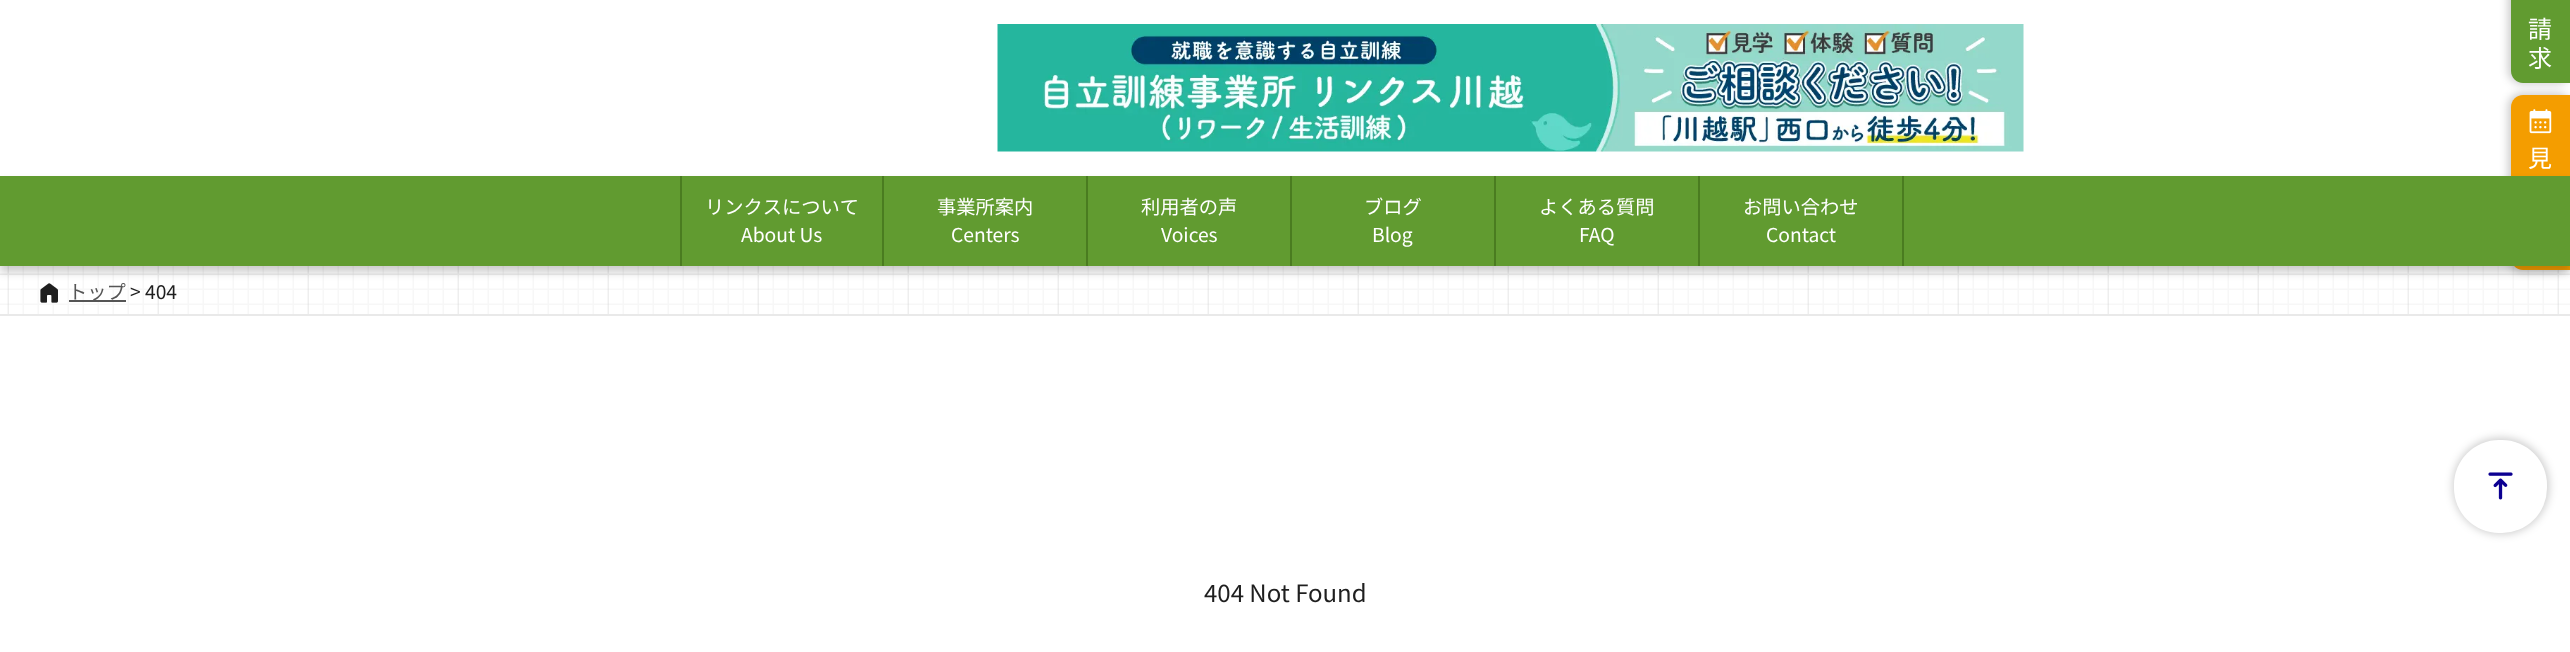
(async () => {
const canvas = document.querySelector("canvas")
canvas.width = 2570
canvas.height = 652
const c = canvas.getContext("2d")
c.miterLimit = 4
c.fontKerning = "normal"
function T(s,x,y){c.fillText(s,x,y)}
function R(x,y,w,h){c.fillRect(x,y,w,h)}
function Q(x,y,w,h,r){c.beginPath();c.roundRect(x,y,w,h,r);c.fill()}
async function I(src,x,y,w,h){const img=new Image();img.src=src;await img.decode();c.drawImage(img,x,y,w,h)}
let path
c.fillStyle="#fff"
R(0,0,2570,652)
await I("1.png",997,24,1027,128)
c.fillStyle="#00000033"
c.filter="blur(4px)"
c.beginPath()
c.roundRect(2508,-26,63,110,14)
c.fill()
c.filter="none"
c.fillStyle="#619b30"
path = new Path2D("M2523-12h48v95h-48c-6.5 0-12-5.5-12-12v-71c0-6.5 5.5-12 12-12z")
c.fill(path)
c.letterSpacing="2px"
c.font="100 24px Noto Sans JP"
c.fillStyle="#fff"
T("請",2528,38)
T("求",2528,67)
await I("3.png",0,266,2570,48)
c.fillStyle="#00000033"
c.filter="blur(4px)"
c.beginPath()
c.roundRect(2508,93,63,179,14)
c.fill()
c.filter="none"
c.fillStyle="#f49d00"
path = new Path2D("M2523 95h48v175h-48c-6.5 0-12-5.5-12-12v-151c0-6.5 5.5-12 12-12z")
c.fill(path)
await I("2.png",2529,109,23,25)
c.fillStyle="#fff"
T("見",2528,167)
await I("4.png",40,283,18,20)
c.fillStyle="#00000033"
c.filter="blur(4.5px)"
c.beginPath()
c.rect(0,182,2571,90)
c.fill()
c.filter="none"
c.fillStyle="#619b30"
R(0,176,2570,90)
c.fillStyle="#4a7c20"
R(882,176,2,90)
R(680,176,2,90)
c.letterSpacing="0px"
c.font="100 19.25px Noto Sans JP"
c.fillStyle="#fff"
T("リンクスについて",705,214)
T("About Us",741,242)
c.fillStyle="#4a7c20"
R(1086,176,2,90)
c.fillStyle="#fff"
T("事業所案内",937,214)
T("Centers",951,242)
c.fillStyle="#4a7c20"
R(1290,176,2,90)
c.fillStyle="#fff"
T("利用者の声",1141,214)
T("Voices",1161,242)
c.fillStyle="#4a7c20"
R(1494,176,2,90)
c.fillStyle="#fff"
T("ブログ",1364,214)
T("Blog",1372,242)
c.fillStyle="#4a7c20"
R(1698,176,2,90)
c.fillStyle="#fff"
T("よくある質問",1539,214)
T("FAQ",1579,242)
c.fillStyle="#4a7c20"
R(1902,176,2,90)
c.fillStyle="#fff"
T("お問い合わせ",1743,214)
T("Contact",1766,242)
c.fillStyle="#e9e9e9"
R(0,314,2570,2)
c.fillStyle="#555"
R(69,300,57,2)
T("トップ",68,299)
c.fillStyle="#1f1f1f"
T("> 404",130,299)
c.font="100 24px Noto Sans JP"
T("404 Not Found",1204,602)
c.fillStyle="#00000033"
c.filter="blur(4px)"
c.beginPath()
c.roundRect(2453,438,96,96,47)
c.fill()
c.filter="none"
c.fillStyle="#fff"
Q(2454,440,93,93,45)
await I("5.png",2488,472,25,28)
})()
